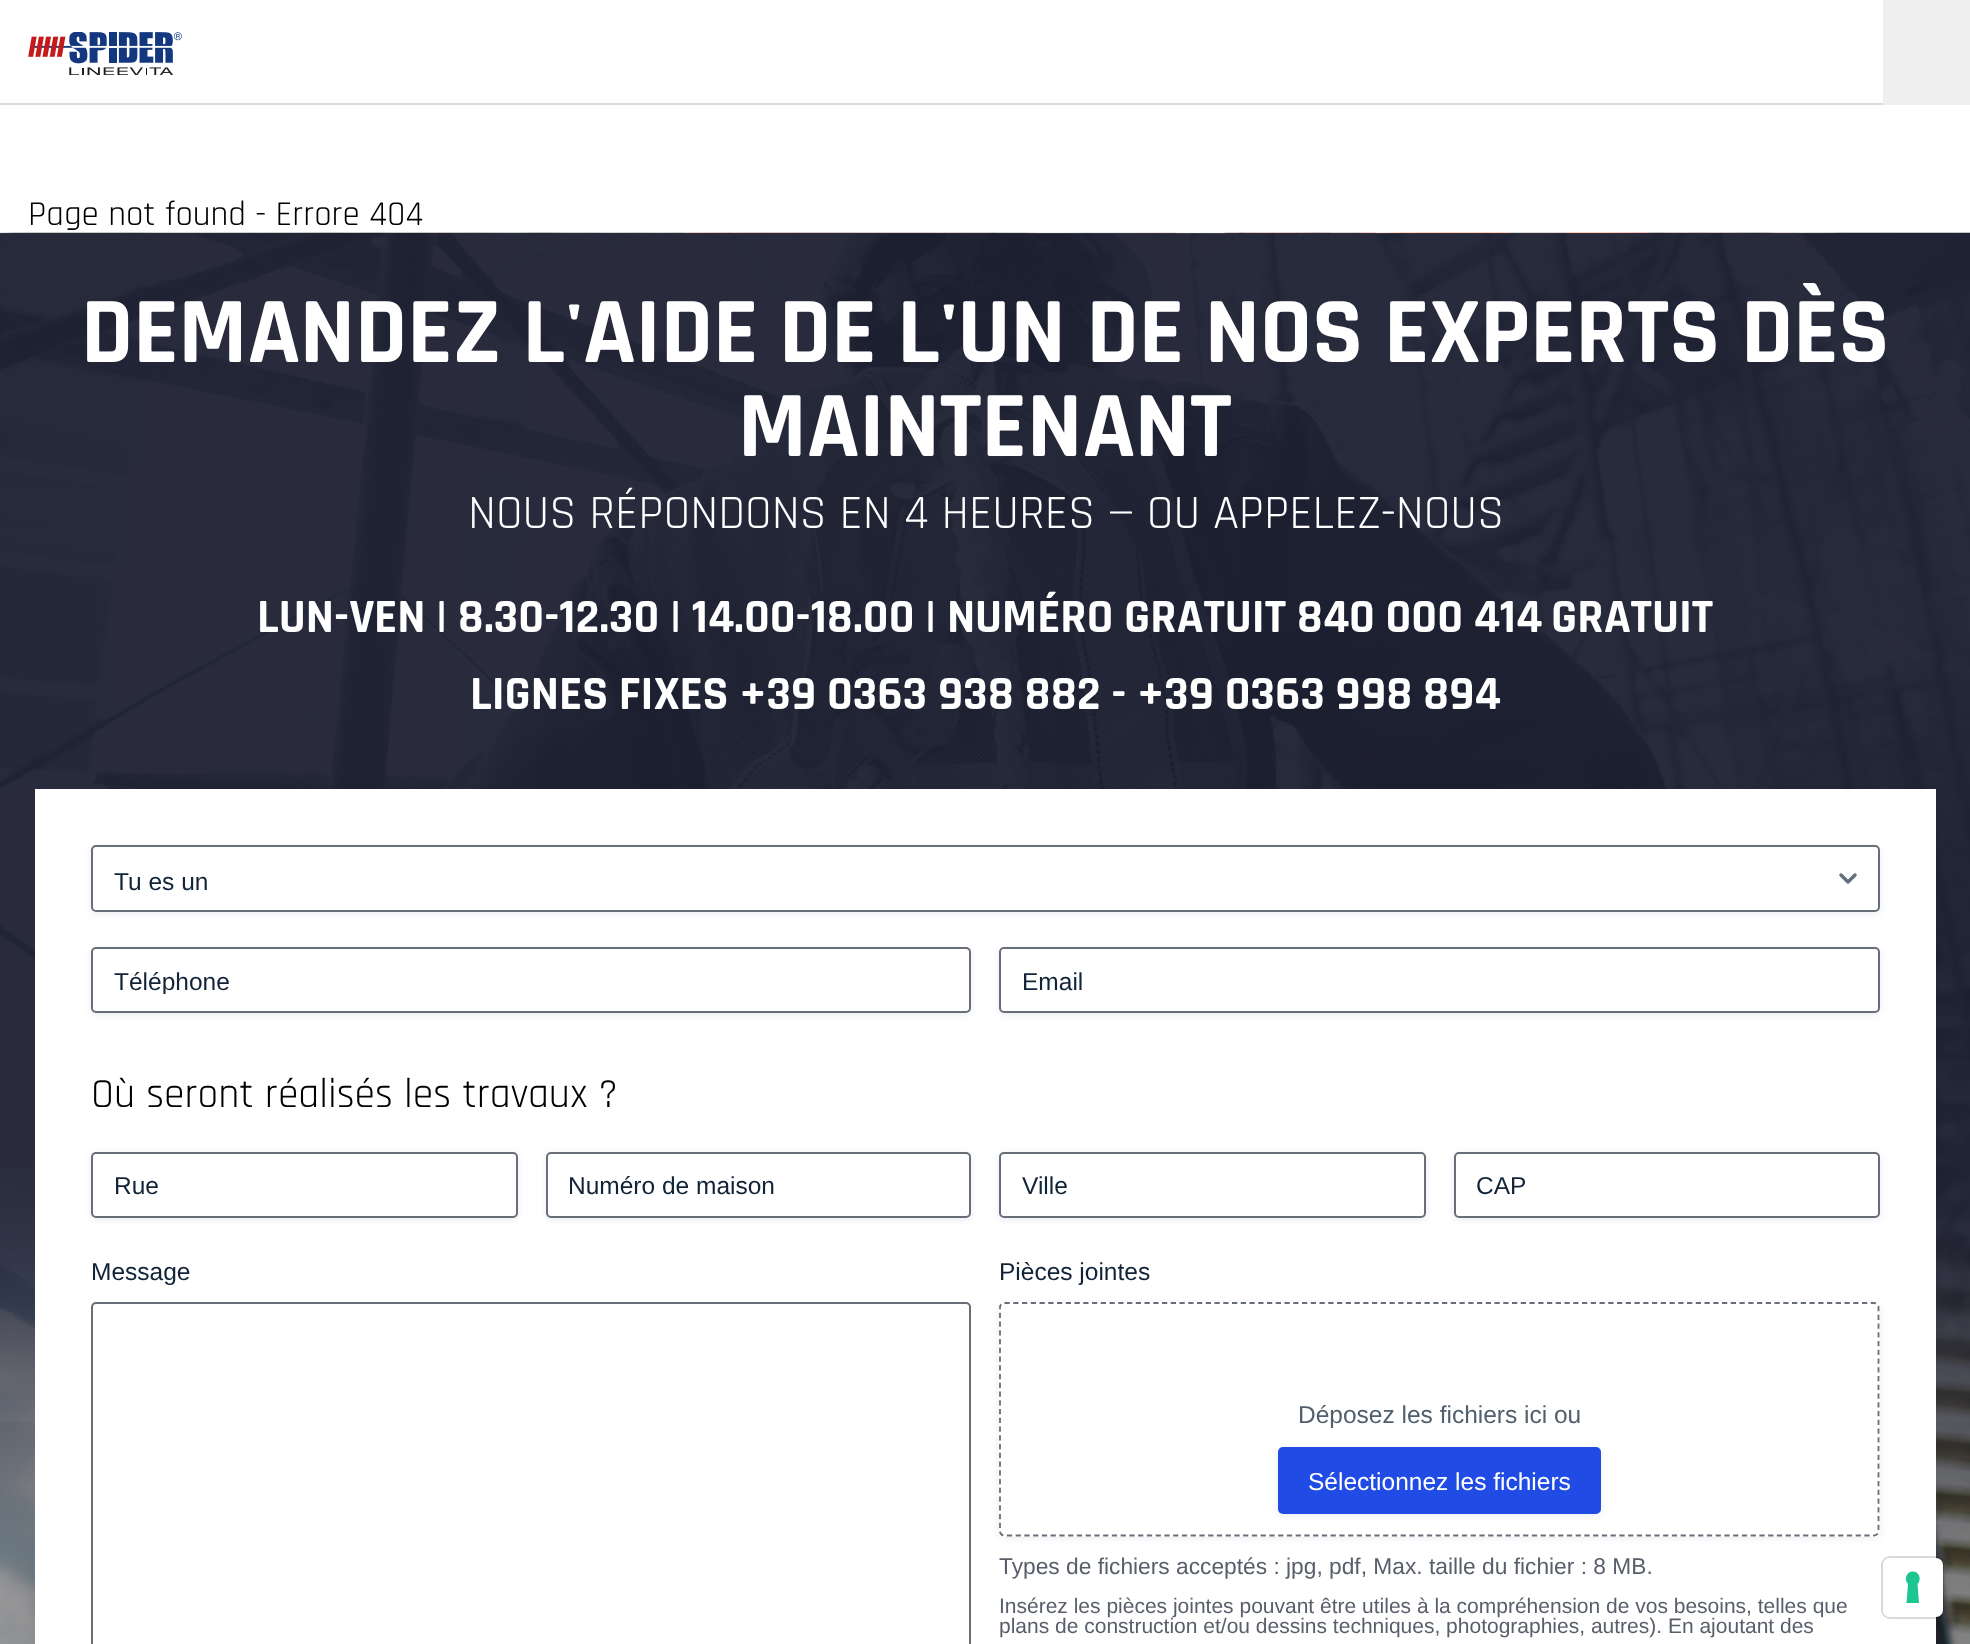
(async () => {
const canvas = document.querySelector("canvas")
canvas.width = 1970
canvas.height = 1644
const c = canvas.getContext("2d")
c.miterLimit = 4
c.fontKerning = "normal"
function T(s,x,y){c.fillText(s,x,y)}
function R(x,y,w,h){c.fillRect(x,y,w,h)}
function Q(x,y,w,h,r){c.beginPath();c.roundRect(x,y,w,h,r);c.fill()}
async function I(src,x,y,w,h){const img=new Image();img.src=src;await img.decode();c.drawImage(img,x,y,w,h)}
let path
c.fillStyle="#fff"
R(0,0,1970,1644)
c.fillStyle="#dcdcdc"
R(0,103,1883,2)
await I("1.png",28,32,154,43)
c.fillStyle="#efefef"
R(1883,0,87,105)
c.font="35px Rajdhani"
c.fillStyle="#000"
T("Page not found - Errore 404",28,225)
await I("2.png",0,232,1970,1412)
c.font="bold 94.5px Rajdhani"
c.fillStyle="#fff"
T("DEMANDEZ L'AIDE DE L'UN DE NOS EXPERTS DÈS",81,362)
T("MAINTENANT",738,456)
c.font="48.25px Rajdhani"
T("NOUS RÉPONDONS EN 4 HEURES — OU APPELEZ-NOUS",468,528)
c.font="bold 48.25px Rajdhani"
T("LUN-VEN | 8.30-12.30 | 14.00-18.00 | NUMÉRO GRATUIT 840 000 414",257,632)
T("GRATUIT",1551,632)
T("LIGNES FIXES +39 0363 938 882 - +39 0363 998 894",470,709)
R(35,789,1901,855)
c.fillStyle="#12196114"
c.filter="blur(3.5px)"
c.beginPath()
c.roundRect(91,847,1789,67,5)
c.fill()
c.filter="none"
c.fillStyle="#fff"
Q(91,845,1789,67,5)
await I("3.png",1839,873,18,11)
c.beginPath()
c.roundRect(92,846,1787,65,4)
c.strokeStyle="#686e77"
c.lineWidth=2
c.stroke()
c.font="24.5px Liberation Sans"
c.fillStyle="#112337"
T("Tu es un",114,890)
c.fillStyle="#12196114"
c.filter="blur(3.5px)"
c.beginPath()
c.roundRect(91,949,880,66,5)
c.fill()
c.filter="none"
c.fillStyle="#fff"
c.beginPath()
c.roundRect(92,948,878,64,4)
c.fill()
c.stroke()
c.save()
c.beginPath()
c.rect(114,966,835,28)
c.clip()
c.fillStyle="#112337"
T("Téléphone",114,990)
c.restore()
c.fillStyle="#12196114"
c.filter="blur(3.5px)"
c.beginPath()
c.roundRect(999,949,881,66,5)
c.fill()
c.filter="none"
c.fillStyle="#fff"
c.beginPath()
c.roundRect(1000,948,879,64,4)
c.fill()
c.stroke()
c.fillStyle="#112337"
T("Email",1022,990)
c.font="41.6px Rajdhani"
c.fillStyle="#000"
T("Où seront réalisés les travaux ?",91,1107)
c.fillStyle="#12196114"
c.filter="blur(3.5px)"
c.beginPath()
c.roundRect(91,1153,427,67,5)
c.fill()
c.filter="none"
c.fillStyle="#fff"
c.beginPath()
c.roundRect(92,1153,425,64,4)
c.fill()
c.stroke()
c.font="24.5px Liberation Sans"
c.fillStyle="#112337"
T("Rue",114,1194)
c.fillStyle="#12196114"
c.filter="blur(3.5px)"
c.beginPath()
c.roundRect(546,1153,425,67,5)
c.fill()
c.filter="none"
c.fillStyle="#fff"
c.beginPath()
c.roundRect(547,1153,423,64,4)
c.fill()
c.stroke()
c.fillStyle="#112337"
T("Numéro de maison",568,1194)
c.fillStyle="#12196114"
c.filter="blur(3.5px)"
c.beginPath()
c.roundRect(999,1153,427,67,5)
c.fill()
c.filter="none"
c.fillStyle="#fff"
c.beginPath()
c.roundRect(1000,1153,425,64,4)
c.fill()
c.stroke()
c.fillStyle="#112337"
T("Ville",1022,1194)
c.fillStyle="#12196114"
c.filter="blur(3.5px)"
c.beginPath()
c.roundRect(1454,1153,426,67,5)
c.fill()
c.filter="none"
c.fillStyle="#fff"
c.beginPath()
c.roundRect(1455,1153,424,64,4)
c.fill()
c.stroke()
c.fillStyle="#112337"
T("CAP",1476,1194)
T("Message",91,1280)
c.beginPath()
c.roundRect(92,1303,878,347,4)
c.stroke()
T("Pièces jointes",999,1280)
c.fillStyle="#12196114"
c.filter="blur(3.5px)"
c.beginPath()
c.roundRect(999,1304,881,234,5)
c.fill()
c.filter="none"
c.fillStyle="#fff"
Q(999,1302,881,235,5)
path = new Path2D("M1004.5 1303h869.5c2.5 0 4.5 2 4.5 4v224c0 2.5-2 4.5-4.5 4.5h-869.5c-2.5 0-4.5-2-4.5-4.5v-224c0-2 2-4 4.5-4z")
c.lineWidth=1.8
c.setLineDash([5.25,3.5])
c.stroke(path)
c.fillStyle="#52606e"
T("Déposez les fichiers ici ou",1298,1423)
c.fillStyle="#12196114"
c.filter="blur(3.5px)"
c.beginPath()
c.roundRect(1278,1449,323,67,5)
c.fill()
c.filter="none"
c.fillStyle="#204ce5"
Q(1278,1447,323,67,5)
c.fillStyle="#fff"
T("Sélectionnez les fichiers",1308,1490)
c.font="22.75px Liberation Sans"
c.fillStyle="#585e6a"
T("Types de fichiers acceptés : jpg, pdf, Max. taille du fichier : 8 MB.",999,1574)
c.font="21px Liberation Sans"
T("Insérez les pièces jointes pouvant être utiles à la compréhension de vos besoins, telles que",999,1613)
T("plans de construction et/ou dessins techniques, photographies, autres). En ajoutant des",999,1633)
c.beginPath()
c.roundRect(1882,1557,61,61,8)
c.strokeStyle="#00000026"
c.lineWidth=2
c.setLineDash([])
c.stroke()
c.fillStyle="#fff"
Q(1883,1558,60,59,7)
c.fillStyle="#1cc691"
path = new Path2D("M1913 1571.5c6 0 9 8 4.5 12.5l1.5 19h-12.5l1.5-19c-4.5-4.5-1.5-12.5 5-12.5z")
c.fill(path,"evenodd")
})()
